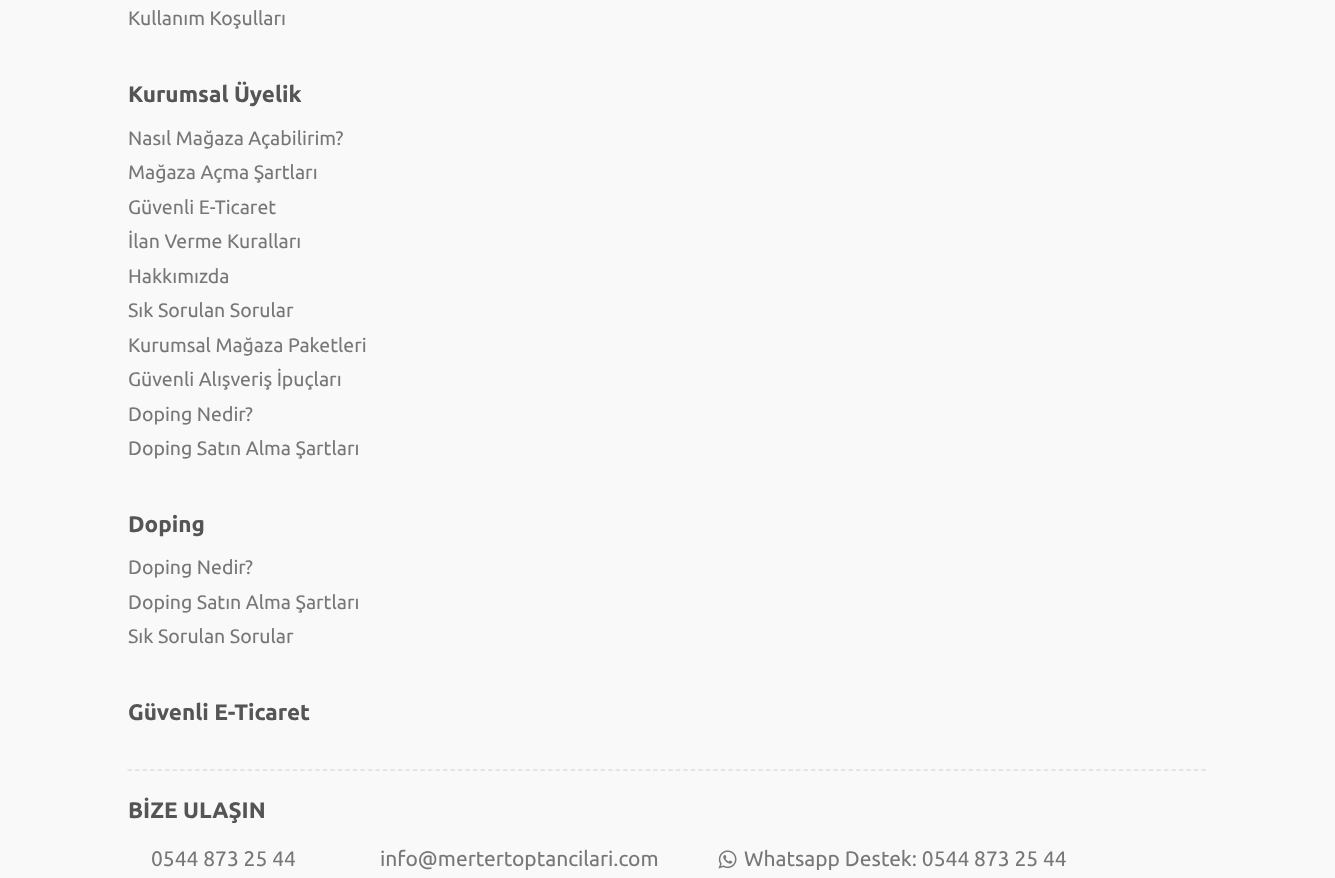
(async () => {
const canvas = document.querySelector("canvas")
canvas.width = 1335
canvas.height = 878
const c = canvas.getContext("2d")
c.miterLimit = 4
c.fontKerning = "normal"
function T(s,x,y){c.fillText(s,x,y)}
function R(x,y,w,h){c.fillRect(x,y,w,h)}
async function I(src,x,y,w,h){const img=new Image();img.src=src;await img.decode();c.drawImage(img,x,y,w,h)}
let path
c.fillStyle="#f9f9f9"
R(0,0,1335,878)
c.font="19.5px Ubuntu"
c.fillStyle="#777"
T("Kullanım Koşulları",128,25)
c.font="bold 22.5px Ubuntu"
c.fillStyle="#555"
T("Kurumsal Üyelik",128,102)
c.font="19.5px Ubuntu"
c.fillStyle="#777"
T("Nasıl Mağaza Açabilirim?",128,145)
T("Mağaza Açma Şartları",128,179)
T("Güvenli E-Ticaret",128,214)
T("İlan Verme Kuralları",128,248)
T("Hakkımızda",128,283)
T("Sık Sorulan Sorular",128,317)
T("Kurumsal Mağaza Paketleri",128,352)
T("Güvenli Alışveriş İpuçları",128,386)
T("Doping Nedir?",128,421)
T("Doping Satın Alma Şartları",128,455)
c.font="bold 22.5px Ubuntu"
c.fillStyle="#555"
T("Doping",128,532)
c.font="19.5px Ubuntu"
c.fillStyle="#777"
T("Doping Nedir?",128,574)
T("Doping Satın Alma Şartları",128,609)
T("Sık Sorulan Sorular",128,643)
c.font="bold 22.5px Ubuntu"
c.fillStyle="#555"
T("Güvenli E-Ticaret",128,720)
path = new Path2D("M127.5 770h1080")
c.strokeStyle="#ddd"
c.lineWidth=1.5
c.setLineDash([4.5,3.01])
c.stroke(path)
T("BİZE ULAŞIN",128,818)
c.font="21px Ubuntu"
c.fillStyle="#777"
T("0544 873 25 44",151,866)
T("info@mertertoptancilari.com",380,866)
await I("1.png",718,850,19,19)
T("Whatsapp Destek: 0544 873 25 44",744,866)
})()
